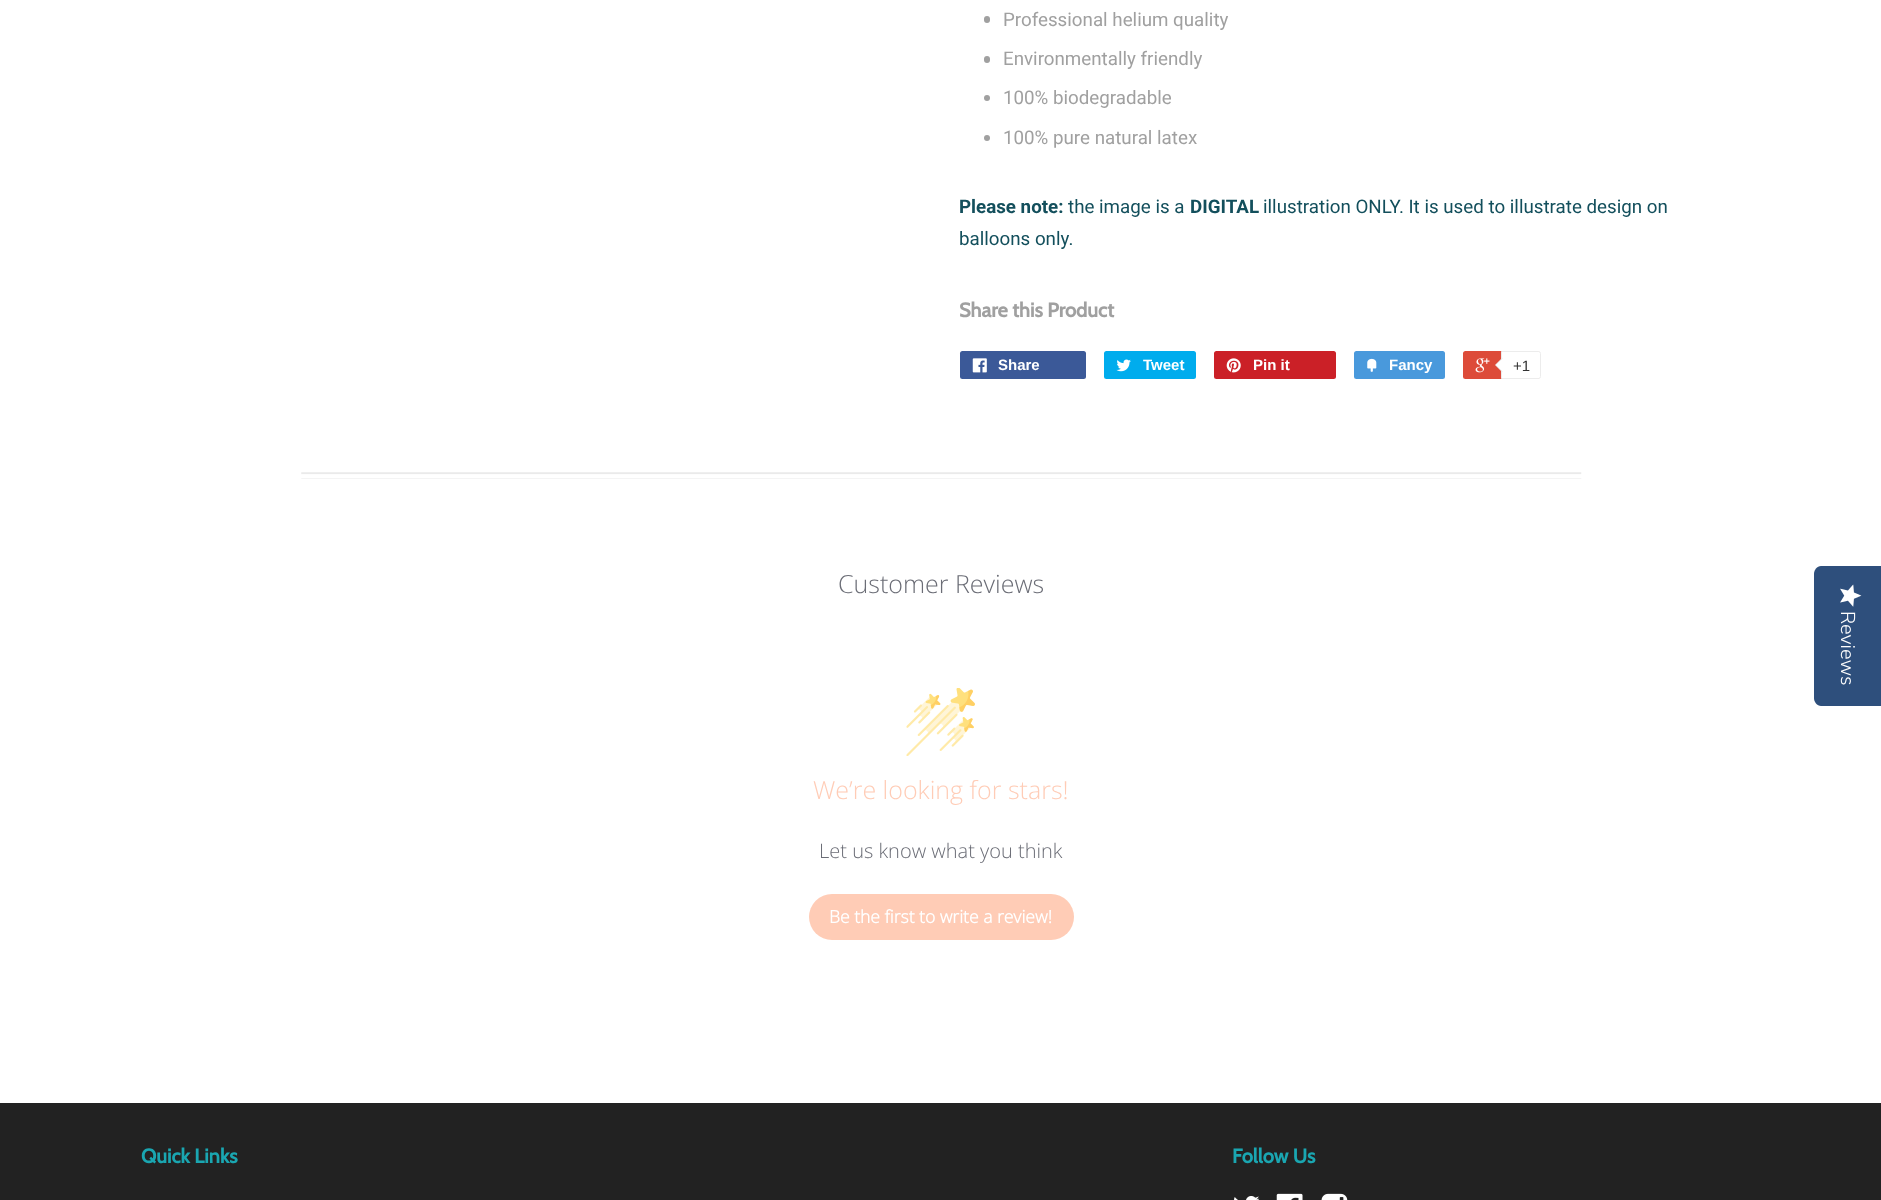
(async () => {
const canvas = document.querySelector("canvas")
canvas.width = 1881
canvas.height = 1200
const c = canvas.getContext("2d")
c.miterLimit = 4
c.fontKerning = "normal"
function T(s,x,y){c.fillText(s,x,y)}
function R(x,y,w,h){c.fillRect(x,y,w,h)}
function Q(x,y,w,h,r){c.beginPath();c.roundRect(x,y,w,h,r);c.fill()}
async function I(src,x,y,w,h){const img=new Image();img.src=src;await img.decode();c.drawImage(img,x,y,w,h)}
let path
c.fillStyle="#fff"
R(0,0,1881,1200)
c.fillStyle="#a0a0a0"
Q(984,16,6,7,3)
c.font="18.75px Roboto"
T("Professional helium quality",1003,26)
Q(984,56,6,7,3)
T("Environmentally friendly",1003,65)
c.beginPath()
c.arc(987,98,3,0,7)
c.fill()
T("100% biodegradable",1003,104)
c.beginPath()
c.arc(987,138,3,0,7)
c.fill()
T("100% pure natural latex",1003,144)
c.font="bold 18.75px Roboto"
c.fillStyle="#134f5c"
T("Please note:",959,213)
c.font="18.75px Roboto"
T("the image is a",1068,213)
c.font="bold 18.75px Roboto"
T("DIGITAL",1190,213)
c.font="18.75px Roboto"
T("illustration ONLY. It is used to illustrate design on",1263,213)
T("balloons only.",959,245)
c.font="bold 20px Cabin"
c.fillStyle="#a0a0a0"
T("Share this Product",959,317)
c.fillStyle="#3b5998"
Q(960,351,126,28,2.5)
await I("1.png",972,358,15,15)
c.font="bold 15px Liberation Sans"
c.fillStyle="#fff"
T("Share",998,370)
c.fillStyle="#00aced"
Q(1104,351,92,28,2.5)
await I("2.png",1116,359,15,13)
c.fillStyle="#fff"
T("Tweet",1143,370)
c.fillStyle="#cb2027"
Q(1214,351,122,28,2.5)
await I("3.png",1226,358,15,15)
c.fillStyle="#fff"
T("Pin it",1253,370)
c.fillStyle="#4999dc"
Q(1354,351,91,28,2.5)
await I("4.png",1367,358,10,14)
c.fillStyle="#fff"
T("Fancy",1389,370)
c.fillStyle="#dd4b39"
Q(1463,351,76,28,2.5)
await I("5.png",1475,358,15,15)
c.fillStyle="#fff"
c.beginPath()
c.roundRect(1501.5,351.5,39,27,[0,2,2,0])
c.fill()
c.strokeStyle="#ececec"
c.stroke()
c.fillStyle="#ececec"
path = new Path2D("M1502.5 357.5v15l-7.5-7.5z")
c.fill(path)
c.fillStyle="#fff"
path = new Path2D("M1504 357.5v15l-8-7.5z")
c.fill(path)
c.font="15px Liberation Sans"
c.fillStyle="#333"
T("+1",1513,371)
await I("6.png",301,472,1281,7)
c.font="300 25px Open Sans"
c.fillStyle="#6b6d76"
T("Customer Reviews",838,593)
await I("7.png",906,688,69,68)
c.fillStyle="#ffccb6"
T("We’re looking for stars!",813,799)
c.font="300 20px Open Sans"
c.fillStyle="#6b6d76"
T("Let us know what you think",819,858)
c.fillStyle="#ffccb6"
Q(809,894,265,46,23)
c.font="bold 17.5px Open Sans"
c.fillStyle="#fff"
T("Be the first to write a review!",829,923)
c.fillStyle="#2e4f7c"
path = new Path2D("M1881 566v140h-60c-4 0-7-4-7-8v-124c0-4 3-8 7-8z")
c.fill(path)
await I("8.png",1840,584,22,23)
c.font="300 20px Nunito Sans"
c.fillStyle="#fff"
c.save()
c.translate(1841,611)
c.rotate(90 * Math.PI / 180)
c.fillText("Reviews",0,0)
c.restore()
c.fillStyle="#222"
R(0,1103,1881,97)
c.font="bold 20px Cabin"
c.fillStyle="#1aa6b1"
T("Quick Links",141,1163)
T("Follow Us",1232,1163)
await I("9.png",1234,1196,26,4)
await I("10.png",1276,1193,27,7)
await I("11.png",1321,1193,27,7)
})()
